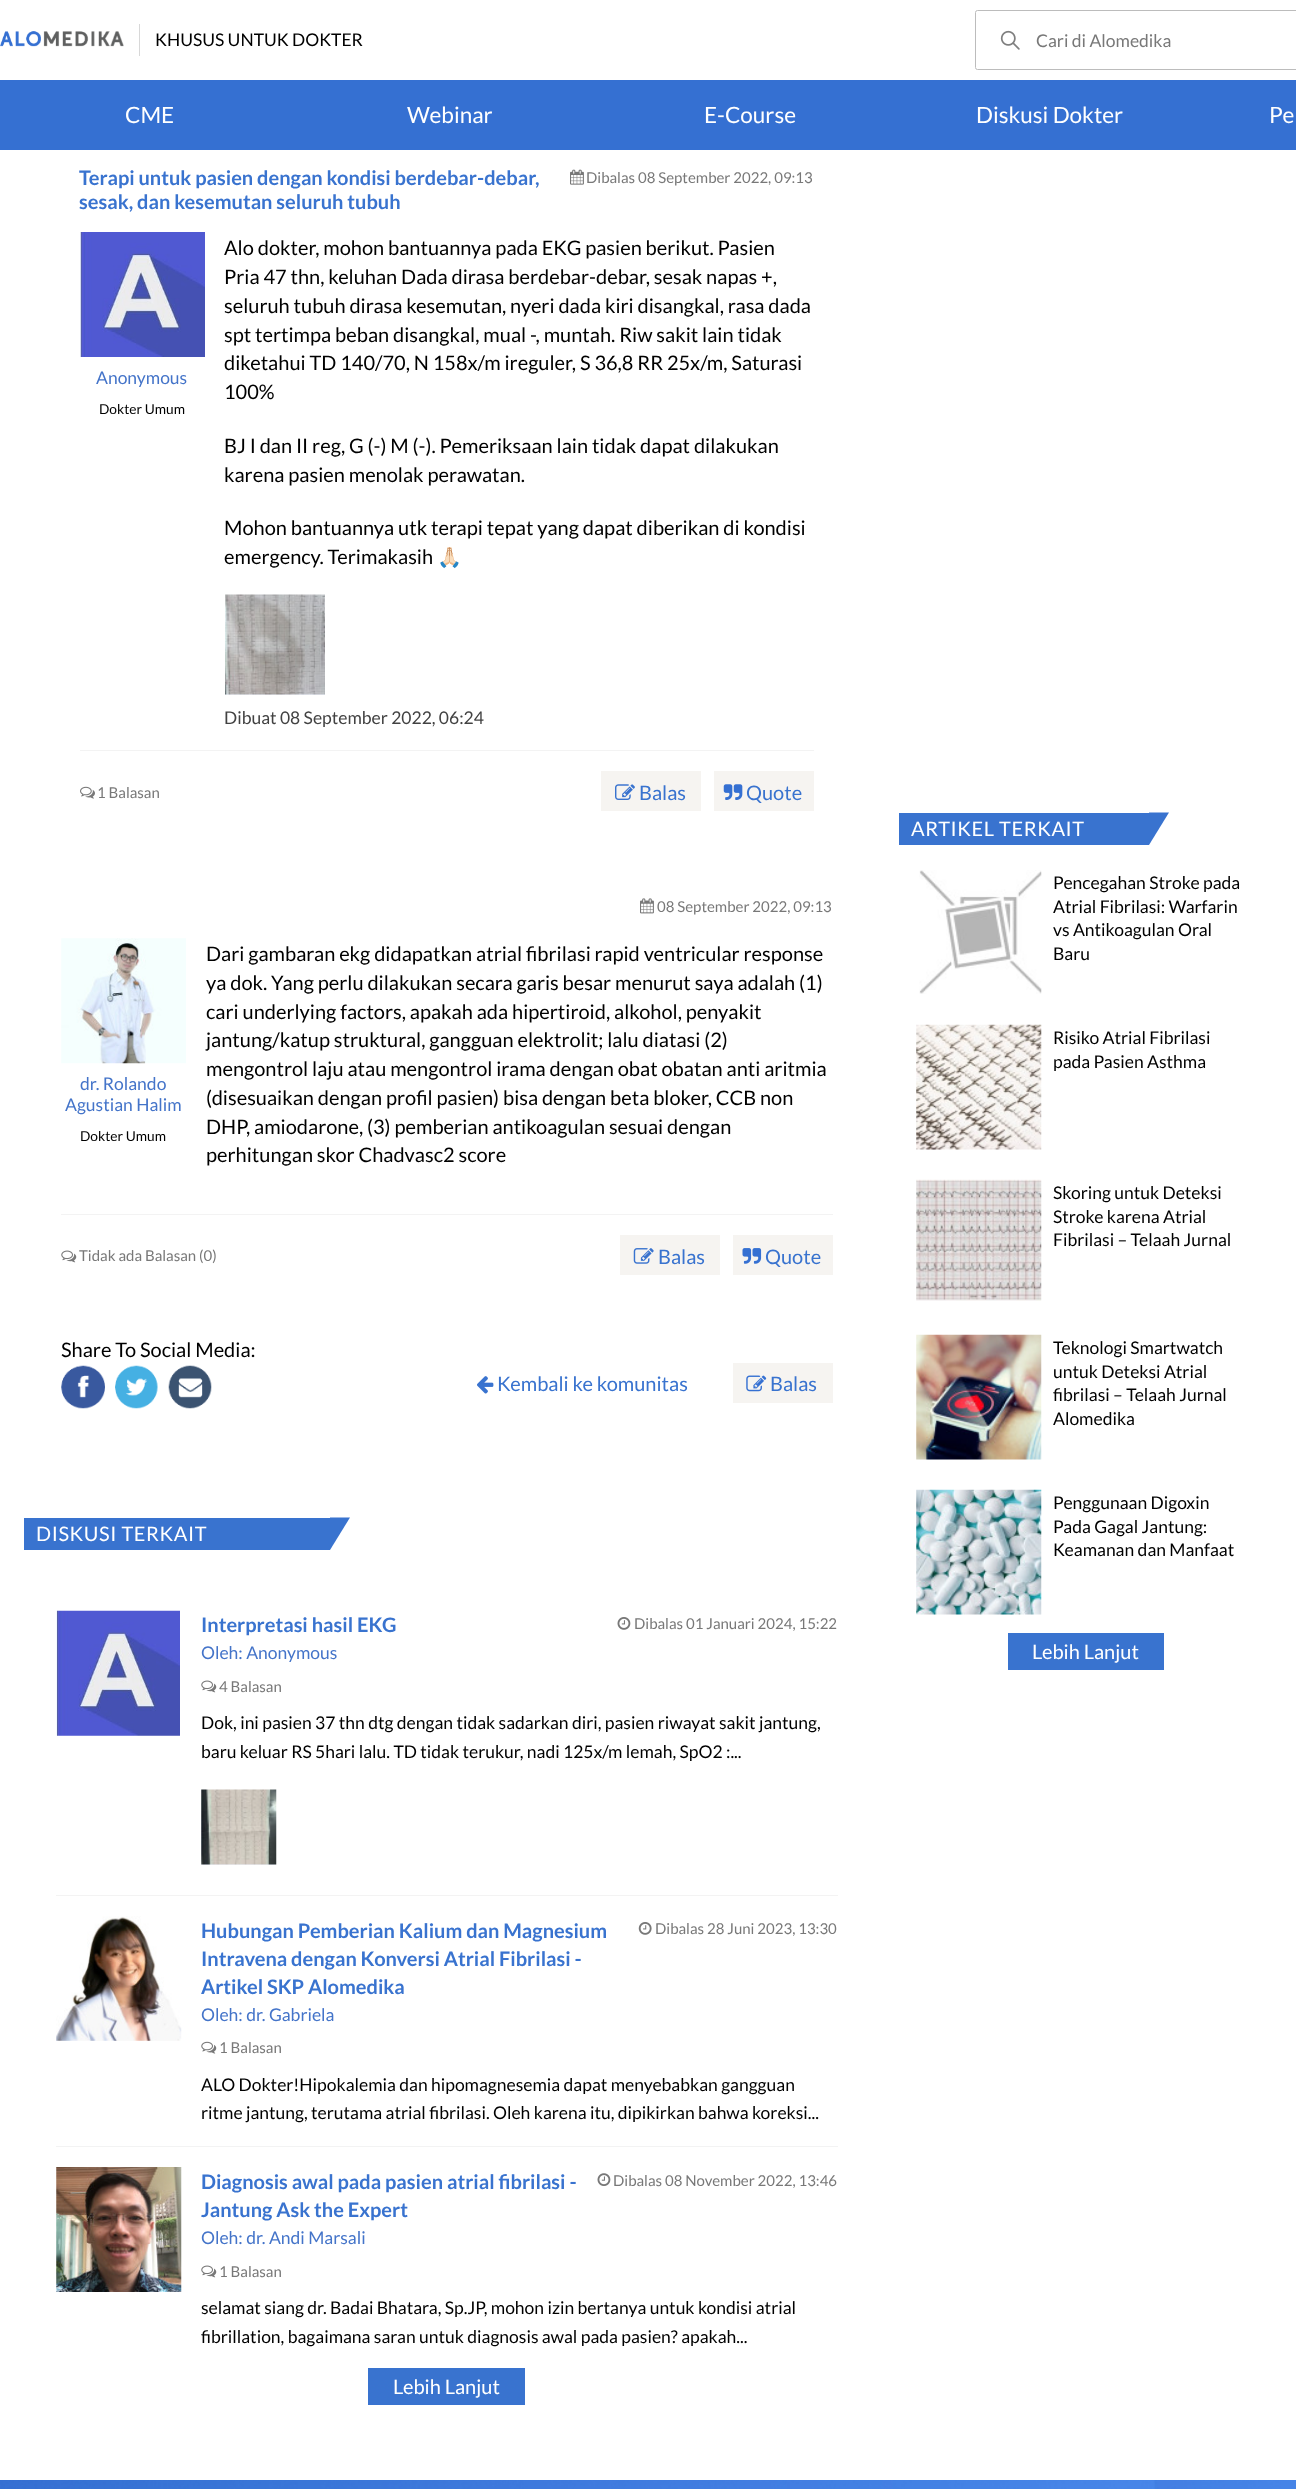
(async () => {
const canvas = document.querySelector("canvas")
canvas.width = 1296
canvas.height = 2489
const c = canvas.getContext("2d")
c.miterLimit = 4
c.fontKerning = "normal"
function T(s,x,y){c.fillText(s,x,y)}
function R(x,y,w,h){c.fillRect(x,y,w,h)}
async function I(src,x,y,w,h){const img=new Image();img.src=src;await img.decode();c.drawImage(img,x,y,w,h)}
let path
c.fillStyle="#fff"
R(0,0,1296,2489)
await I("1.png",0,31,124,16)
c.fillStyle="#d8d8d8"
R(139,24,1,32)
c.font="17.5px Lato"
c.fillStyle="#000"
T("KHUSUS UNTUK DOKTER",155,46)
await I("2.png",1000,30,20,20)
c.beginPath()
c.roundRect(975.5,10.5,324,59,2)
c.strokeStyle="#bcbcbc"
c.stroke()
c.fillStyle="#787878"
T("Cari di Alomedika",1036,47)
c.fillStyle="#3570d2"
R(0,80,1296,70)
c.font="22.5px Lato"
c.fillStyle="#fff"
T("CME",125,123)
T("Webinar",407,123)
T("E-Course",704,123)
T("Diskusi Dokter",976,123)
T("Pe",1269,123)
c.font="bold 20px Lato"
c.fillStyle="#3973cf"
T("Terapi untuk pasien dengan kondisi berdebar-debar,",79,185)
T("sesak, dan kesemutan seluruh tubuh",79,209)
await I("3.png",570,169,14,16)
c.font="15px Lato"
c.fillStyle="#787878"
T("Dibalas 08 September 2022, 09:13",586,183)
c.fillStyle="#f3f3f3"
R(80,750,734,1)
await I("4.png",80,232,125,125)
c.font="17.5px Lato"
c.fillStyle="#4474c9"
T("Anonymous",96,384)
c.font="13.75px Lato"
c.fillStyle="#000"
T("Dokter Umum",99,414)
c.font="20px Lato"
T("Alo dokter, mohon bantuannya pada EKG pasien berikut. Pasien",224,255)
T("Pria 47 thn, keluhan Dada dirasa berdebar-debar, sesak napas +,",224,284)
T("seluruh tubuh dirasa kesemutan, nyeri dada kiri disangkal, rasa dada",224,313)
T("spt tertimpa beban disangkal, mual -, muntah. Riw sakit lain tidak",224,342)
T("diketahui TD 140/70, N 158x/m ireguler, S 36,8 RR 25x/m, Saturasi",224,370)
T("100%",224,399)
T("BJ I dan II reg, G (-) M (-). Pemeriksaan lain tidak dapat dilakukan",224,453)
T("karena pasien menolak perawatan.",224,482)
T("Mohon bantuannya utk terapi tepat yang dapat diberikan di kondisi",224,535)
T("emergency. Terimakasih",224,564)
c.font="20px Noto Color Emoji"
T("🙏🏻",437,564)
c.fillStyle="#f0f5ff"
R(225,694,100,1)
await I("5.png",225,594,100,101)
c.font="17.5px Lato"
c.fillStyle="#424242"
T("Dibuat 08 September 2022, 06:24",224,724)
await I("6.png",80,786,15,13)
c.font="15px Lato"
c.fillStyle="#787878"
T("1 Balasan",97,798)
c.fillStyle="#f6f4f1"
R(601,771,100,40)
await I("7.png",615,784,20,16)
c.font="20px Lato"
c.fillStyle="#3973cf"
T("Balas",639,800)
c.fillStyle="#f6f4f1"
R(714,771,100,40)
await I("8.png",723,784,20,16)
c.fillStyle="#3973cf"
T("Quote",746,800)
await I("9.png",640,898,14,16)
c.font="15px Lato"
c.fillStyle="#787878"
T("08 September 2022, 09:13",657,912)
c.fillStyle="#f3f3f3"
R(61,1214,772,1)
await I("10.png",61,938,125,126)
c.font="17.5px Lato"
c.fillStyle="#4474c9"
T("dr. Rolando",80,1090)
T("Agustian Halim",65,1111)
c.font="13.75px Lato"
c.fillStyle="#000"
T("Dokter Umum",80,1141)
c.font="20px Lato"
T("Dari gambaran ekg didapatkan atrial fibrilasi rapid ventricular response",206,961)
T("ya dok. Yang perlu dilakukan secara garis besar menurut saya adalah (1)",206,990)
T("cari underlying factors, apakah ada hipertiroid, alkohol, penyakit",206,1019)
T("jantung/katup struktural, gangguan elektrolit; lalu diatasi (2)",206,1047)
T("mengontrol laju atau mengontrol irama dengan obat obatan anti aritmia",206,1076)
T("(disesuaikan dengan profil pasien) bisa dengan beta bloker, CCB non",206,1105)
T("DHP, amiodarone, (3) pemberian antikoagulan sesuai dengan",206,1134)
T("perhitungan skor Chadvasc2 score",206,1162)
await I("11.png",61,1250,16,13)
c.font="15px Lato"
c.fillStyle="#787878"
T("Tidak ada Balasan (0)",79,1261)
c.fillStyle="#f6f4f1"
R(620,1235,100,40)
await I("12.png",633,1248,21,16)
c.font="20px Lato"
c.fillStyle="#3973cf"
T("Balas",658,1264)
c.fillStyle="#f6f4f1"
R(733,1235,100,40)
await I("13.png",742,1248,20,16)
c.fillStyle="#3973cf"
T("Quote",765,1264)
c.fillStyle="#000"
T("Share To Social Media:",61,1357)
await I("14.png",61,1365,44,44)
await I("15.png",115,1365,43,44)
await I("16.png",168,1365,44,44)
await I("17.png",477,1376,17,18)
c.fillStyle="#3973cf"
T("Kembali ke komunitas",497,1391)
c.fillStyle="#f6f4f1"
R(733,1363,100,40)
await I("18.png",746,1375,21,17)
c.fillStyle="#3973cf"
T("Balas",770,1391)
R(899,813,250,32)
c.letterSpacing="0.6px"
c.fillStyle="#fff"
T("ARTIKEL TERKAIT",911,836)
c.fillStyle="#3973cf"
path = new Path2D("M1149 845v-32.5h20z")
c.fill(path)
await I("19.png",919,870,123,124)
c.letterSpacing="0px"
c.font="17.5px Lato"
c.fillStyle="#000"
T("Pencegahan Stroke pada",1053,889)
T("Atrial Fibrilasi: Warfarin",1053,913)
T("vs Antikoagulan Oral",1053,936)
T("Baru",1053,960)
await I("20.png",916,1024,126,126)
T("Risiko Atrial Fibrilasi",1053,1044)
T("pada Pasien Asthma",1053,1068)
await I("21.png",916,1179,126,122)
T("Skoring untuk Deteksi",1053,1199)
T("Stroke karena Atrial",1053,1223)
T("Fibrilasi – Telaah Jurnal",1053,1246)
await I("22.png",916,1334,126,126)
T("Teknologi Smartwatch",1053,1354)
T("untuk Deteksi Atrial",1053,1378)
T("fibrilasi – Telaah Jurnal",1053,1401)
T("Alomedika",1053,1425)
await I("23.png",916,1489,126,126)
T("Penggunaan Digoxin",1053,1509)
T("Pada Gagal Jantung:",1053,1533)
T("Keamanan dan Manfaat",1053,1556)
c.fillStyle="#3973cf"
R(1008,1633,156,37)
c.font="20px Lato"
c.fillStyle="#fff"
T("Lebih Lanjut",1032,1659)
c.fillStyle="#3973cf"
R(24,1518,306,32)
c.letterSpacing="0.6px"
c.fillStyle="#fff"
T("DISKUSI TERKAIT",36,1541)
c.fillStyle="#3973cf"
path = new Path2D("M330 1550v-32.5h20z")
c.fill(path)
c.fillStyle="#f3f3f3"
R(56,1895,782,1)
await I("24.png",56,1610,124,126)
c.letterSpacing="0px"
c.font="bold 20px Lato"
c.fillStyle="#3973cf"
T("Interpretasi hasil EKG",201,1632)
await I("25.png",617,1617,14,13)
c.font="15px Lato"
c.fillStyle="#787878"
T("Dibalas 01 Januari 2024, 15:22",634,1629)
c.font="17.5px Lato"
c.fillStyle="#4474c9"
T("Oleh: Anonymous",201,1659)
await I("11.png",201,1680,16,13)
c.font="15px Lato"
c.fillStyle="#787878"
T("4 Balasan",219,1692)
c.font="17.5px Lato"
c.fillStyle="#000"
T("Dok, ini pasien 37 thn dtg dengan tidak sadarkan diri, pasien riwayat sakit jantung,",201,1729)
T("baru keluar RS 5hari lalu. TD tidak terukur, nadi 125x/m lemah, SpO2 :...",201,1758)
c.fillStyle="#f0f5ff"
R(201,1790,75,75)
await I("26.png",201,1789,76,76)
c.fillStyle="#f3f3f3"
R(56,2146,782,1)
await I("27.png",56,1916,126,125)
c.font="bold 20px Lato"
c.fillStyle="#3973cf"
T("Hubungan Pemberian Kalium dan Magnesium",201,1938)
T("Intravena dengan Konversi Atrial Fibrilasi -",201,1966)
T("Artikel SKP Alomedika",201,1994)
await I("28.png",638,1922,14,13)
c.font="15px Lato"
c.fillStyle="#787878"
T("Dibalas 28 Juni 2023, 13:30",655,1934)
c.font="17.5px Lato"
c.fillStyle="#4474c9"
T("Oleh: dr. Gabriela",201,2021)
await I("29.png",201,2041,16,13)
c.font="15px Lato"
c.fillStyle="#787878"
T("1 Balasan",219,2053)
c.font="17.5px Lato"
c.fillStyle="#000"
T("ALO Dokter!Hipokalemia dan hipomagnesemia dapat menyebabkan gangguan",201,2091)
T("ritme jantung, terutama atrial fibrilasi. Oleh karena itu, dipikirkan bahwa koreksi...",201,2119)
await I("30.png",56,2167,126,125)
c.font="bold 20px Lato"
c.fillStyle="#3973cf"
T("Diagnosis awal pada pasien atrial fibrilasi -",201,2189)
T("Jantung Ask the Expert",201,2217)
await I("31.png",597,2173,14,13)
c.font="15px Lato"
c.fillStyle="#787878"
T("Dibalas 08 November 2022, 13:46",613,2186)
c.font="17.5px Lato"
c.fillStyle="#4474c9"
T("Oleh: dr. Andi Marsali",201,2244)
await I("11.png",201,2265,16,13)
c.font="15px Lato"
c.fillStyle="#787878"
T("1 Balasan",219,2277)
c.font="17.5px Lato"
c.fillStyle="#000"
T("selamat siang dr. Badai Bhatara, Sp.JP, mohon izin bertanya untuk kondisi atrial",201,2314)
T("fibrillation, bagaimana saran untuk diagnosis awal pada pasien? apakah...",201,2343)
c.fillStyle="#3973cf"
R(368,2368,157,37)
c.font="20px Lato"
c.fillStyle="#fff"
T("Lebih Lanjut",393,2394)
await I("32.png",0,2480,1296,9)
})()
